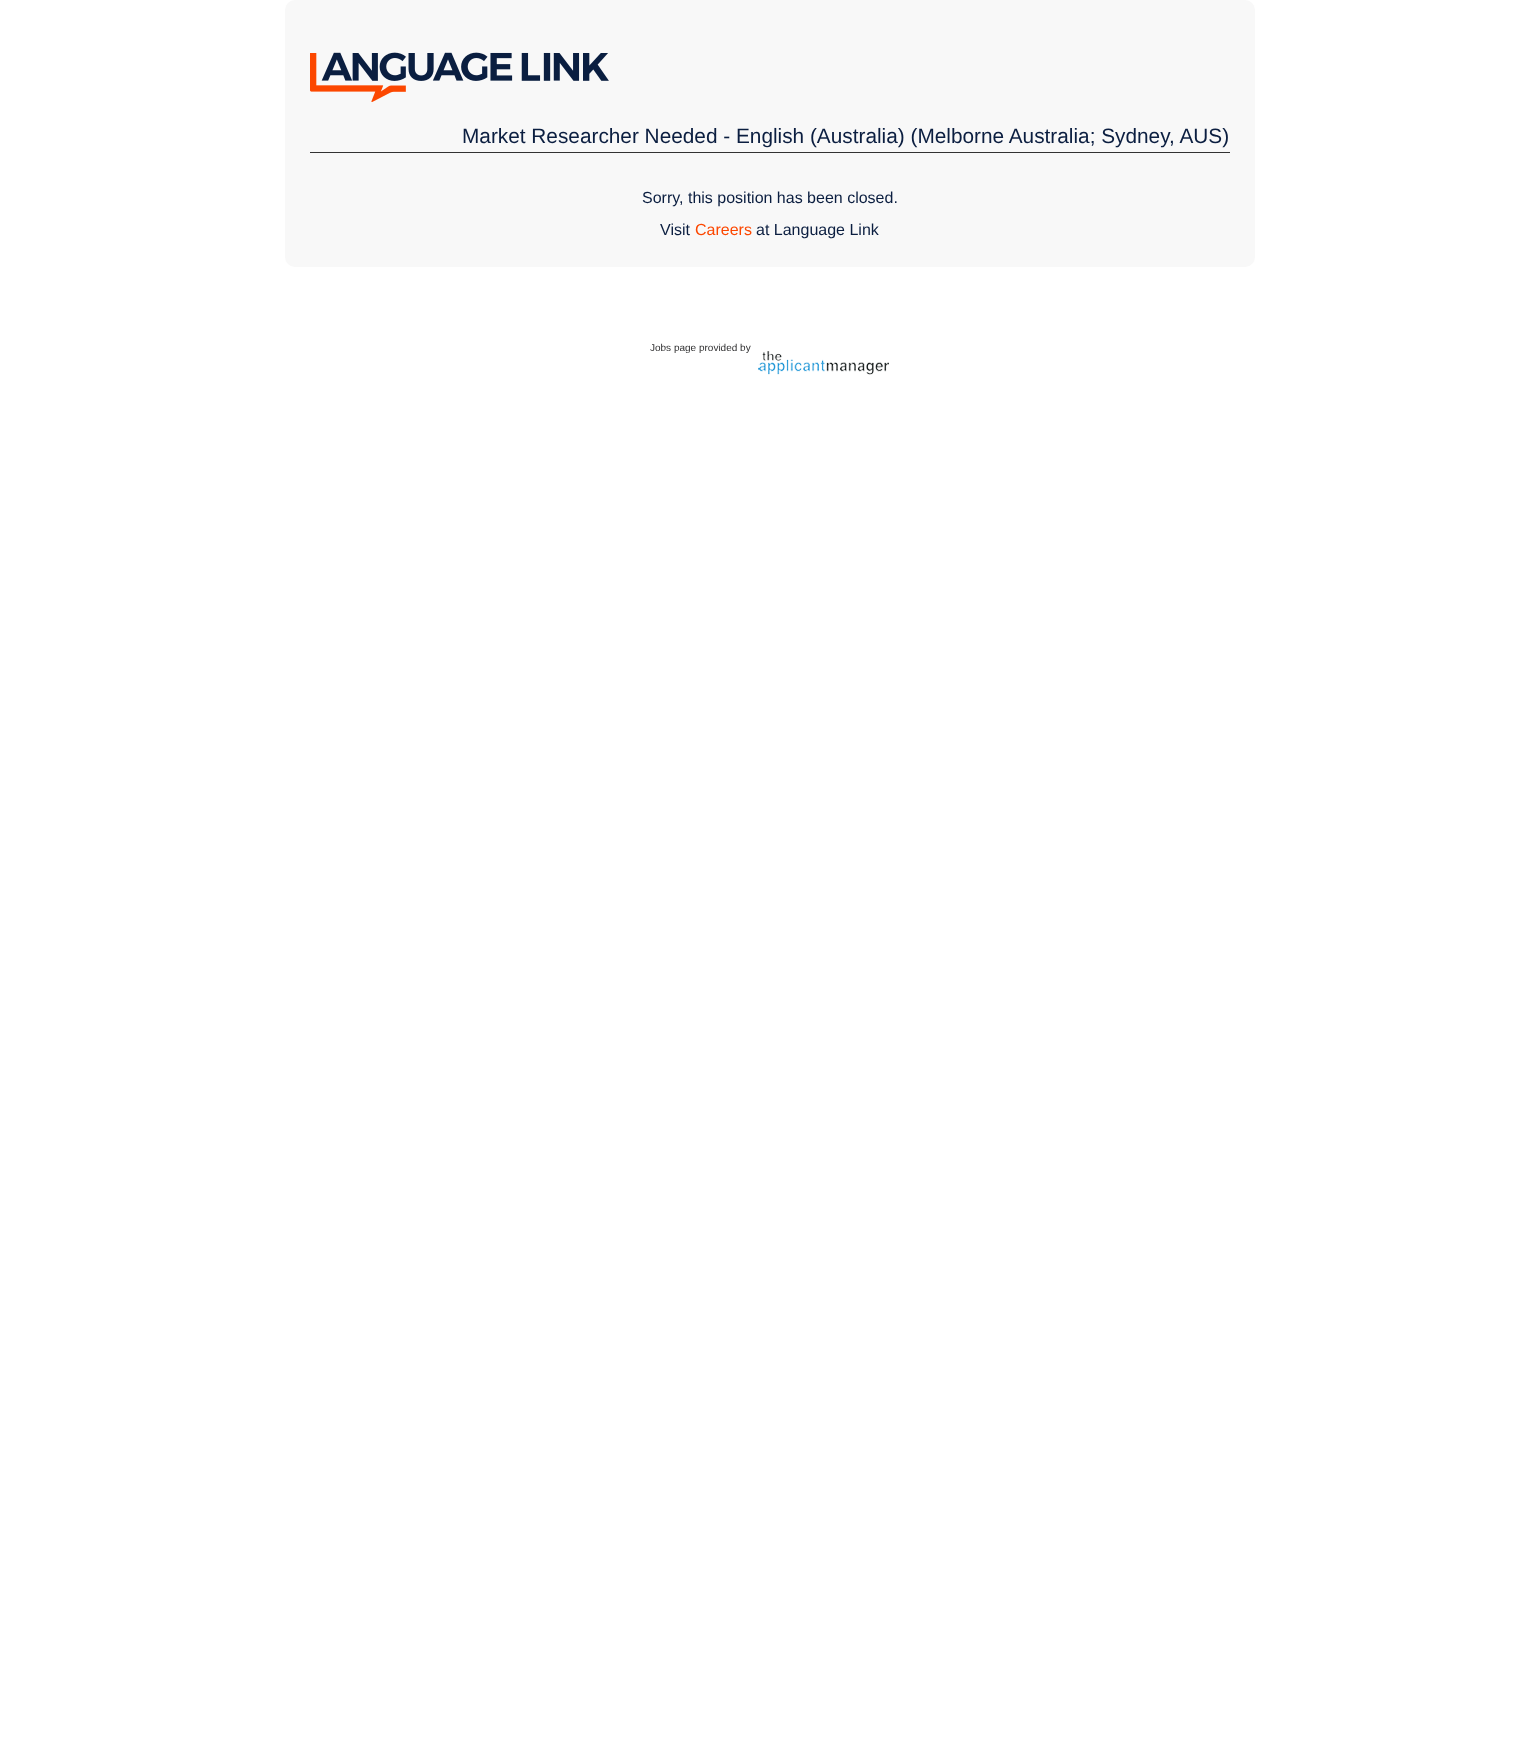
(async () => {
const canvas = document.querySelector("canvas")
canvas.width = 1539
canvas.height = 1753
const c = canvas.getContext("2d")
c.miterLimit = 4
c.fontKerning = "normal"
function T(s,x,y){c.fillText(s,x,y)}
function R(x,y,w,h){c.fillRect(x,y,w,h)}
function Q(x,y,w,h,r){c.beginPath();c.roundRect(x,y,w,h,r);c.fill()}
async function I(src,x,y,w,h){const img=new Image();img.src=src;await img.decode();c.drawImage(img,x,y,w,h)}
c.fillStyle="#fff"
R(0,0,1539,1753)
c.fillStyle="#f8f8f8"
Q(285,0,970,267,10)
await I("1.png",310,52,299,50)
c.fillStyle="#333"
R(310,152,920,1)
c.font="20.8px Liberation Sans"
c.fillStyle="#0b1e40"
T("Market Researcher Needed - English (Australia) (Melborne Australia; Sydney, AUS)",462,143)
c.font="16px Liberation Sans"
T("Sorry, this position has been closed.",642,203)
T("Visit",660,235)
c.fillStyle="#fc4700"
T("Careers",695,235)
c.fillStyle="#0b1e40"
T("at Language Link",756,235)
c.font="10px Liberation Sans"
c.fillStyle="#313132"
T("Jobs page provided by",650,351)
await I("2.png",758,351,131,24)
})()
